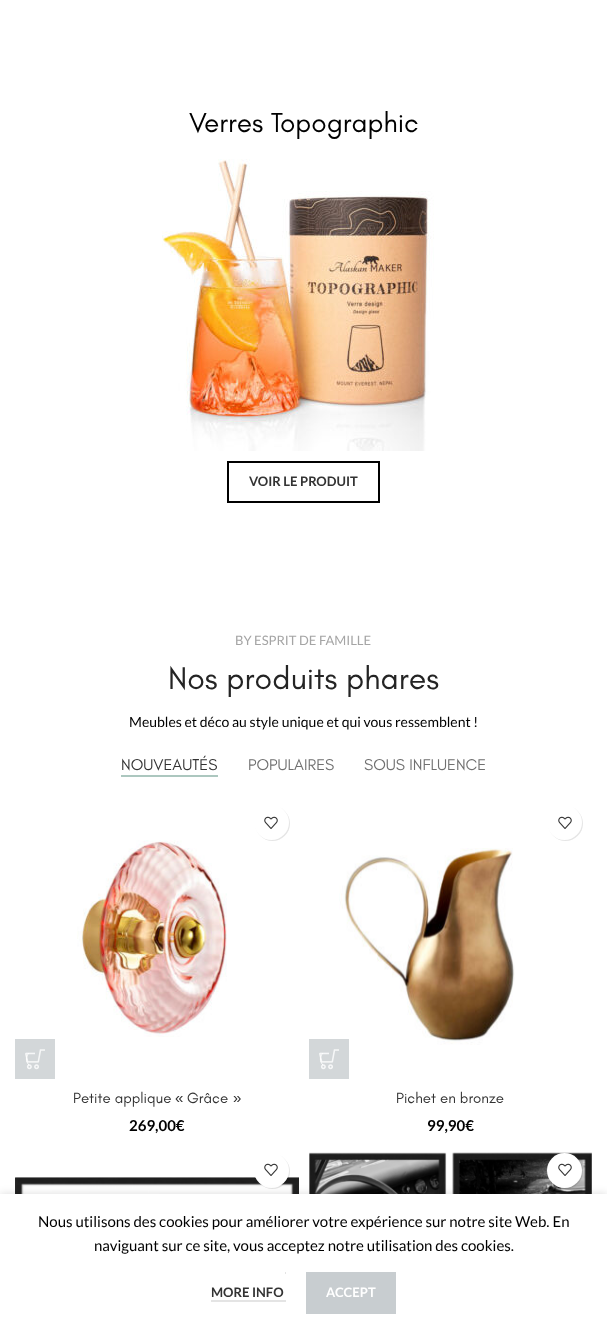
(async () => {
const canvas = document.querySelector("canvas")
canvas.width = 607
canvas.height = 1329
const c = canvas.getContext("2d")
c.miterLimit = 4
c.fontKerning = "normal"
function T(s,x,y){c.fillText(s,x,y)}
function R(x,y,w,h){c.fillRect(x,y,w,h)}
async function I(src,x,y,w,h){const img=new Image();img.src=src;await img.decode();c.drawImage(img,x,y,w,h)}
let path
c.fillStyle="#fff"
R(0,0,607,1329)
c.font="28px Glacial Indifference"
c.fillStyle="#000"
T("Verres Topographic",189,132)
await I("1.png",162,159,272,292)
c.strokeStyle="#000"
c.lineWidth=2
c.strokeRect(228,462,151,40)
c.font="bold 13px Lato"
c.fillStyle="#333"
T("VOIR LE PRODUIT",249,486)
c.font="13px Lato"
c.fillStyle="#a5a5a5"
T("BY ESPRIT DE FAMILLE",235,645)
c.font="32px Glacial Indifference"
c.fillStyle="#242424"
T("Nos produits phares",168,689)
c.font="14px Lato"
c.fillStyle="#000"
T("Meubles et déco au style unique et qui vous ressemblent !",129,727)
c.font="16px Glacial Indifference"
c.fillStyle="#333"
T("NOUVEAUTÉS",121,770)
c.fillStyle="#acc7bf"
R(121,775,97,2)
c.fillStyle="#707070"
T("POPULAIRES",248,770)
T("SOUS INFLUENCE",364,770)
c.fillStyle="#0000001a"
c.filter="blur(0.5px)"
c.beginPath()
c.roundRect(255,806,35,35,17.5)
c.fill()
c.filter="none"
c.fillStyle="#fff"
c.beginPath()
c.arc(271.5,822.5,17.5,0,7)
c.fill()
await I("2.png",264,816,14,13)
await I("3.png",77,840,150,197)
c.fillStyle="#d3d7d9"
R(15,1039,40,40)
await I("4.png",25,1049,20,21)
path = new Path2D("M29 1065c-3.5-3.5-3.5-8.5 0-12")
c.strokeStyle="#fff"
c.lineWidth=1
c.stroke(path)
c.font="15px Glacial Indifference"
c.fillStyle="#333"
T("Petite applique",73,1103)
c.font="15px Liberation Sans"
T("«",175,1103)
c.font="15px Glacial Indifference"
T("Grâce",187,1103)
c.font="15px Liberation Sans"
T("»",233,1103)
c.font="bold 15px Lato"
c.fillStyle="#000"
T("269,00€",129,1131)
c.fillStyle="#0000001a"
c.filter="blur(0.5px)"
c.beginPath()
c.roundRect(548,806,35,35,17.5)
c.fill()
c.filter="none"
c.fillStyle="#fff"
c.beginPath()
c.arc(564.5,822.5,17.5,0,7)
c.fill()
await I("2.png",558,816,14,13)
await I("5.png",339,848,176,197)
c.fillStyle="#d3d7d9"
R(309,1039,40,40)
await I("4.png",319,1049,20,21)
path = new Path2D("M323 1065c-3.5-3.5-3.5-8.5 0-12")
c.stroke(path)
c.font="15px Glacial Indifference"
c.fillStyle="#333"
T("Pichet en bronze",396,1103)
c.font="bold 15px Lato"
c.fillStyle="#000"
T("99,90€",427,1131)
await I("6.png",15,1177,284,17)
c.fillStyle="#0000001a"
c.filter="blur(0.5px)"
c.beginPath()
c.roundRect(255,1154,35,35,17.5)
c.fill()
c.filter="none"
c.fillStyle="#fff"
c.beginPath()
c.arc(271.5,1170.5,17.5,0,7)
c.fill()
await I("2.png",264,1163,14,13)
await I("7.png",309,1152,283,42)
c.fillStyle="#0000001a"
c.filter="blur(0.5px)"
c.beginPath()
c.roundRect(548,1154,35,35,17.5)
c.fill()
c.filter="none"
c.fillStyle="#fff"
c.beginPath()
c.arc(564.5,1170.5,17.5,0,7)
c.fill()
await I("2.png",558,1163,14,13)
c.fillStyle="#00000024"
c.filter="blur(4.5px)"
c.beginPath()
c.rect(0,1194,607,135)
c.fill()
c.filter="none"
c.fillStyle="#fff"
R(0,1194,607,135)
c.font="15px Lato"
c.fillStyle="#000"
T("Nous utilisons des cookies pour améliorer votre expérience sur notre site Web. En",38,1227)
T("naviguant sur ce site, vous acceptez notre utilisation des cookies.",94,1251)
c.font="bold 13px Lato"
c.fillStyle="#333"
T("MORE INFO",211,1297)
c.fillStyle="#e4e4e4"
R(211,1300,75,2)
R(285,1272,1,2)
c.fillStyle="#c8cdd0"
R(306,1272,90,42)
c.fillStyle="#fff"
T("ACCEPT",326,1297)
})()
